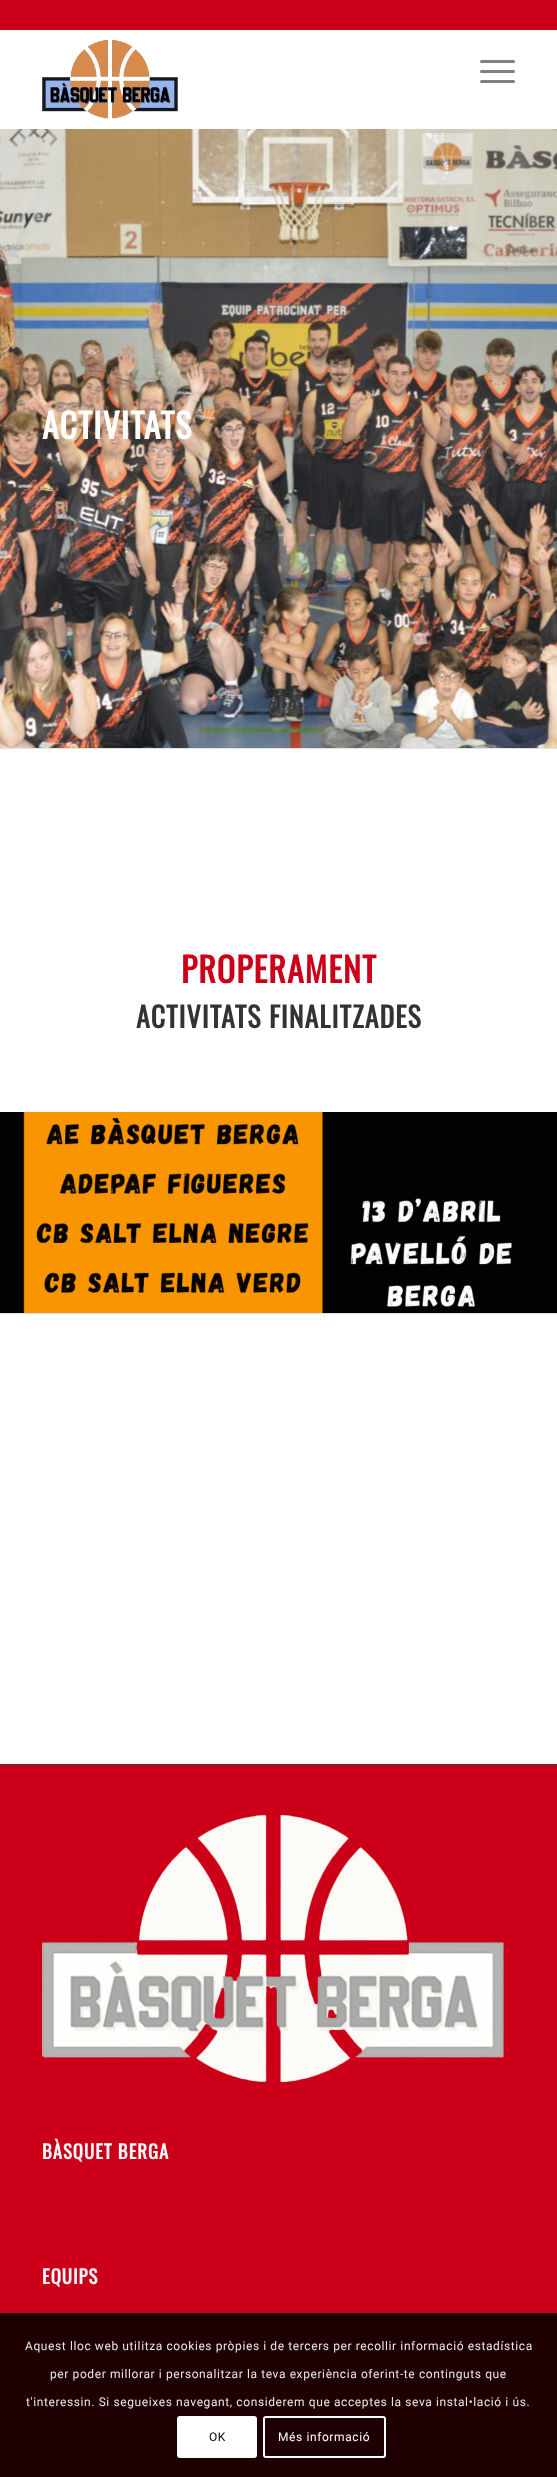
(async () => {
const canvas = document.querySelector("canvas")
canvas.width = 557
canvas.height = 2477
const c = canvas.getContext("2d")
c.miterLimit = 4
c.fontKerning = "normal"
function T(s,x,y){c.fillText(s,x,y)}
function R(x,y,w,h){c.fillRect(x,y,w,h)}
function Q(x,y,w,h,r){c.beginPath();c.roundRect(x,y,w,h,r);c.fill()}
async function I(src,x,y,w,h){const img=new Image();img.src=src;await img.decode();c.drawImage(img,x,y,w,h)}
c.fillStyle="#fff"
R(0,0,557,2477)
c.fillStyle="#cb0018"
R(0,0,557,30)
await I("1.png",42,39,136,80)
c.fillStyle="#808080"
Q(480,70,35,3,1.5)
Q(480,60,35,3,1.5)
Q(480,80,35,3,1.5)
await I("2.png",0,129,557,619)
c.letterSpacing="1px"
c.font="bold 34px Oswald"
c.fillStyle="#fff"
T("ACTIVITATS",42,439)
c.fillStyle="#e1e1e1"
R(0,748,557,1)
c.fillStyle="#cb0018"
T("PROPERAMENT",181,983)
c.font="bold 28px Oswald"
c.fillStyle="#333"
T("ACTIVITATS FINALITZADES",136,1028)
await I("3.png",0,1112,557,201)
c.fillStyle="#e1e1e1"
R(0,1313,557,1)
c.fillStyle="#cb0018"
R(0,1765,557,712)
c.fillStyle="#444"
R(0,1764,557,1)
await I("4.png",42,1814,462,269)
c.font="bold 18.75px Oswald"
c.fillStyle="#fff"
T("BÀSQUET BERGA",42,2159)
T("EQUIPS",42,2284)
c.fillStyle="#000000d9"
R(0,2313,557,164)
c.letterSpacing="0.6px"
c.font="12px Roboto"
c.fillStyle="#e9e6e6"
T("Aquest lloc web utilitza cookies pròpies i de tercers per recollir informació estadística",25,2350)
T("per poder millorar i personalitzar la teva experiència oferint-te continguts que",50,2378)
T("t'interessin. Si segueixes navegant, considerem que acceptes la seva instal•lació i ús.",26,2406)
c.fillStyle="#fff"
Q(177,2416,80,42,3)
c.fillStyle="#000"
T("OK",209,2441)
c.beginPath()
c.roundRect(264,2417,121,40,2)
c.strokeStyle="#fff"
c.lineWidth=2
c.stroke()
c.fillStyle="#fff"
T("Més informació",278,2441)
})()
